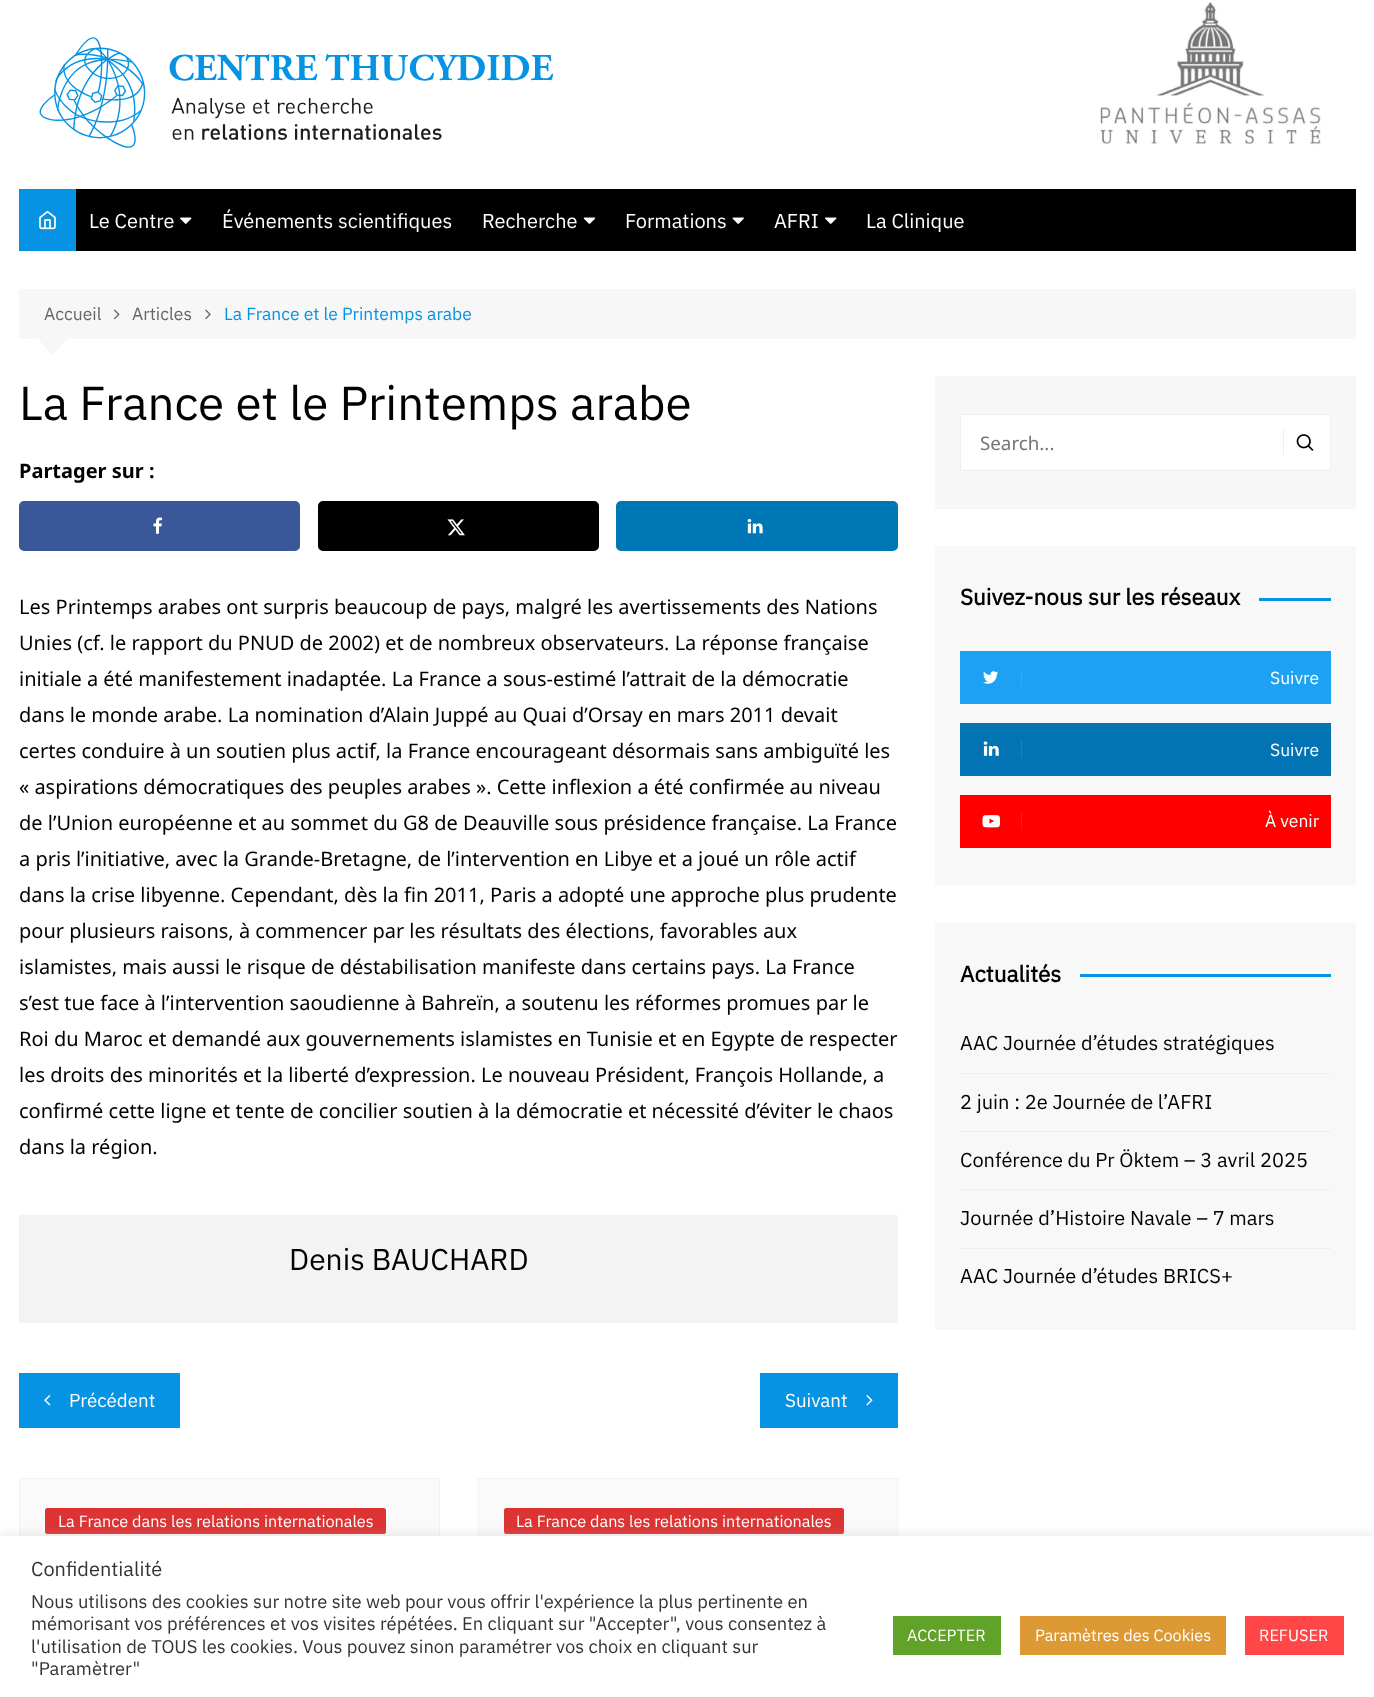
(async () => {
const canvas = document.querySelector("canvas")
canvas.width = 1374
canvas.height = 1697
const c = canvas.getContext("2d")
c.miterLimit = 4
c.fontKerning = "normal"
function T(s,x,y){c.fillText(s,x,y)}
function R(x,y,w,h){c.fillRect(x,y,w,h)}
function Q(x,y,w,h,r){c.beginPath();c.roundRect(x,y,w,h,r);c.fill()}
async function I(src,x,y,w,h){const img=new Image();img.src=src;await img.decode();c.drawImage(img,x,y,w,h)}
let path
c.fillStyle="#fff"
R(0,0,1374,1697)
await I("1.png",39,37,515,111)
await I("2.png",1100,2,221,143)
c.fillStyle="#000"
R(76,189,1280,62)
c.fillStyle="#0693e3"
R(19,189,57,62)
await I("3.png",39,210,17,20)
c.font="20px IBM Plex Sans"
c.fillStyle="#fff"
T("Le Centre",89,228)
await I("4.png",180,217,12,7)
T("Événements scientifiques",222,228)
T("Recherche",482,228)
await I("5.png",583,217,13,7)
T("Formations",625,228)
await I("6.png",732,217,12,7)
T("AFRI",774,228)
await I("4.png",825,217,12,7)
T("La Clinique",866,228)
c.fillStyle="#f7f7f7"
R(19,289,1337,50)
c.font="17.5px IBM Plex Sans"
c.fillStyle="#666"
T("Accueil",44,320)
await I("7.png",113,309,7,11)
T("Articles",132,320)
await I("8.png",205,309,6,11)
c.fillStyle="#0693e3"
T("La France et le Printemps arabe",224,320)
c.fillStyle="#f7f7f7"
path = new Path2D("M37.5 338.5h30l-15 16.5z")
c.fill(path)
c.font="47.5px IBM Plex Sans"
c.fillStyle="#010101"
T("La France et le Printemps arabe",19,420)
c.font="bold 20px Noto Sans"
T("Partager sur :",19,478)
c.fillStyle="#3a579a"
c.beginPath()
c.roundRect(20.5,502.5,278,47,3.5)
c.fill()
c.strokeStyle="#3a579a"
c.lineWidth=3
c.stroke()
await I("9.png",153,517,9,17)
c.fillStyle="#000"
c.beginPath()
c.roundRect(319.5,502.5,278,47,3.5)
c.fill()
c.strokeStyle="#000"
c.stroke()
await I("10.png",447,519,18,17)
c.fillStyle="#0077b5"
c.beginPath()
c.roundRect(617.5,502.5,279,47,3.5)
c.fill()
c.strokeStyle="#0077b5"
c.stroke()
await I("11.png",747,519,16,15)
c.font="20px Noto Sans"
c.fillStyle="#010101"
T("Les Printemps arabes ont surpris beaucoup de pays, malgré les avertissements des Nations",19,614)
T("Unies (cf. le rapport du PNUD de 2002) et de nombreux observateurs. La réponse française",19,650)
T("initiale a été manifestement inadaptée. La France a sous-estimé l’attrait de la démocratie",19,686)
T("dans le monde arabe. La nomination d’Alain Juppé au Quai d’Orsay en mars 2011 devait",19,722)
T("certes conduire à un soutien plus actif, la France encourageant désormais sans ambiguïté les",19,758)
T("« aspirations démocratiques des peuples arabes ». Cette inflexion a été confirmée au niveau",19,794)
T("de l’Union européenne et au sommet du G8 de Deauville sous présidence française. La France",19,830)
T("a pris l’initiative, avec la Grande-Bretagne, de l’intervention en Libye et a joué un rôle actif",19,866)
T("dans la crise libyenne. Cependant, dès la fin 2011, Paris a adopté une approche plus prudente",19,902)
T("pour plusieurs raisons, à commencer par les résultats des élections, favorables aux",19,938)
T("islamistes, mais aussi le risque de déstabilisation manifeste dans certains pays. La France",19,974)
T("s’est tue face à l’intervention saoudienne à Bahreïn, a soutenu les réformes promues par le",19,1010)
T("Roi du Maroc et demandé aux gouvernements islamistes en Tunisie et en Egypte de respecter",19,1046)
T("les droits des minorités et la liberté d’expression. Le nouveau Président, François Hollande, a",19,1082)
T("confirmé cette ligne et tente de concilier soutien à la démocratie et nécessité d’éviter le chaos",19,1118)
T("dans la région.",19,1154)
c.fillStyle="#f3f3f3"
R(19,1215,879,108)
c.font="30px IBM Plex Sans"
c.fillStyle="#010101"
T("Denis BAUCHARD",289,1270)
c.fillStyle="#0693e3"
R(19,1373,161,55)
await I("12.png",44,1395,7,11)
c.font="18.75px IBM Plex Sans"
c.fillStyle="#fff"
T("Précédent",69,1407)
c.fillStyle="#0693e3"
R(760,1373,138,55)
c.fillStyle="#fff"
T("Suivant",785,1407)
await I("13.png",866,1395,7,11)
c.fillStyle="#fafafa"
R(20,1479,419,57)
c.strokeStyle="#f3f3f3"
c.lineWidth=1
c.strokeRect(19.5,1478.5,420,205)
c.fillStyle="#d33"
Q(45,1508,341,26,2.5)
c.font="16.25px IBM Plex Sans"
c.fillStyle="#fff"
T("La France dans les relations internationales",58,1527)
c.fillStyle="#fafafa"
R(479,1479,418,57)
c.strokeRect(478.5,1478.5,419,175)
c.fillStyle="#d33"
Q(504,1508,340,26,2.5)
c.fillStyle="#fff"
T("La France dans les relations internationales",516,1527)
c.fillStyle="#f7f7f7"
R(935,376,421,133)
c.fillStyle="#fff"
c.beginPath()
c.rect(960.5,414.5,370,56)
c.fill()
c.strokeStyle="#eee"
c.stroke()
c.font="18.75px Noto Sans"
c.fillStyle="#757575"
T("Search...",980,450)
c.fillStyle="#eee"
R(1283,430,1,25)
await I("14.png",1296,434,18,17)
c.fillStyle="#f8f8f8"
R(935,546,421,339)
c.font="bold 22.5px IBM Plex Sans"
c.fillStyle="#010101"
T("Suivez-nous sur les réseaux",960,605)
c.fillStyle="#0693e3"
R(1259,598,72,3)
c.fillStyle="#1da1f2"
R(960,651,371,53)
c.fillStyle="#34aaf3"
R(1021,669,1,17)
await I("15.png",983,671,16,13)
c.font="17.5px IBM Plex Sans"
c.fillStyle="#fff"
T("Suivre",1270,684)
c.fillStyle="#0274b3"
R(960,723,371,53)
c.fillStyle="#1b82bb"
R(1021,740,1,18)
await I("16.png",983,741,16,15)
c.fillStyle="#fff"
T("Suivre",1270,756)
c.fillStyle="#f00"
R(960,795,371,53)
c.fillStyle="#ff1a1a"
R(1021,813,1,17)
await I("17.png",982,815,18,13)
c.fillStyle="#fff"
T("À venir",1265,827)
c.fillStyle="#f8f8f8"
R(935,923,421,407)
c.font="bold 22.5px IBM Plex Sans"
c.fillStyle="#010101"
T("Actualités",960,982)
c.fillStyle="#0693e3"
R(1080,974,251,3)
c.fillStyle="#eee"
R(960,1073,371,1)
c.font="20px IBM Plex Sans"
c.fillStyle="#010101"
T("AAC Journée d’études stratégiques",960,1050)
c.fillStyle="#eee"
R(960,1131,371,1)
c.fillStyle="#010101"
T("2 juin : 2e Journée de l’AFRI",960,1109)
c.fillStyle="#eee"
R(960,1189,371,1)
c.fillStyle="#010101"
T("Conférence du Pr Öktem – 3 avril 2025",960,1167)
c.fillStyle="#eee"
R(960,1248,371,1)
c.fillStyle="#010101"
T("Journée d’Histoire Navale – 7 mars",960,1225)
T("AAC Journée d’études BRICS+",960,1283)
c.fillStyle="#acabab4d"
c.filter="blur(6px)"
c.beginPath()
c.rect(0,1535,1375,161)
c.fill()
c.filter="none"
c.fillStyle="#fff"
R(0,1536,1374,161)
c.fillStyle="#333"
T("Confidentialité",31,1576)
c.font="18.35px IBM Plex Sans"
T("Nous utilisons des cookies sur notre site web pour vous offrir l'expérience la plus pertinente en",31,1608)
T("mémorisant vos préférences et vos visites répétées. En cliquant sur \"Accepter\", vous consentez à",31,1630)
T("l'utilisation de TOUS les cookies. Vous pouvez sinon paramétrer vos choix en cliquant sur",31,1653)
T("\"Paramètrer\"",31,1675)
c.fillStyle="#61a229"
R(893,1616,108,39)
c.font="16.25px IBM Plex Sans"
c.fillStyle="#fff"
T("ACCEPTER",907,1641)
c.fillStyle="#d93"
R(1020,1616,206,39)
c.fillStyle="#fff"
T("Paramètres des Cookies",1035,1641)
c.fillStyle="#ff4747"
R(1245,1616,99,39)
c.fillStyle="#fff"
T("REFUSER",1259,1641)
})()
